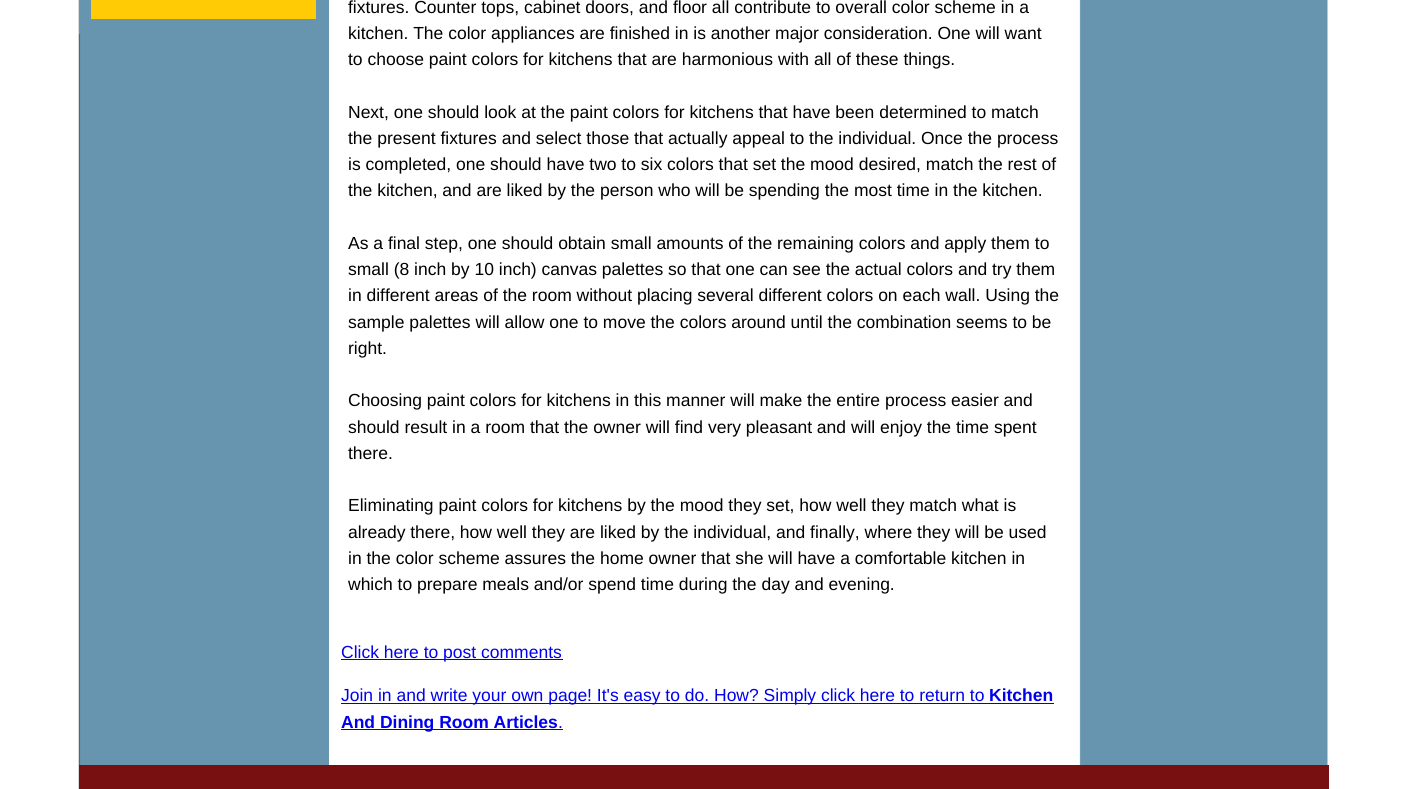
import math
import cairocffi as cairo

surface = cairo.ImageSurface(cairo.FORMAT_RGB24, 1407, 789)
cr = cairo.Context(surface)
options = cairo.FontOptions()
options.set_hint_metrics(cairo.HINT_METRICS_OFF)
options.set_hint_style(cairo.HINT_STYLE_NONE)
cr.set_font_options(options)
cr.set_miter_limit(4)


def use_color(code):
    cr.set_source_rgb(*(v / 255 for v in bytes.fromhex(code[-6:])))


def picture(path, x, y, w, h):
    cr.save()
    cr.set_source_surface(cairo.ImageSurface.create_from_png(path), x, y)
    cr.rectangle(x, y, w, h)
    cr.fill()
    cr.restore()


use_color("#ffffff")
cr.paint()
picture("img1.png", 78, 0, 1250, 789)
use_color("#6795af")
cr.rectangle(79, 0, 2, 34)
cr.fill()
use_color("#ffcb05")
cr.rectangle(91, 0, 225, 19)
cr.fill()
use_color("#ffffff")
cr.rectangle(329, 0, 14, 765)
cr.fill()
cr.select_font_face("Liberation Sans")
cr.set_font_size(17.5)
use_color("#000000")
cr.move_to(348, 13)
cr.show_text("fixtures. Counter tops, cabinet doors, and floor all contribute to overall color scheme in a")
cr.move_to(348, 39)
cr.show_text("kitchen. The color appliances are finished in is another major consideration. One will want")
cr.move_to(348, 65)
cr.show_text("to choose paint colors for kitchens that are harmonious with all of these things.")
cr.move_to(348, 118)
cr.show_text("Next, one should look at the paint colors for kitchens that have been determined to match")
cr.move_to(348, 144)
cr.show_text("the present fixtures and select those that actually appeal to the individual. Once the process")
cr.move_to(348, 170)
cr.show_text("is completed, one should have two to six colors that set the mood desired, match the rest of")
cr.move_to(348, 196)
cr.show_text("the kitchen, and are liked by the person who will be spending the most time in the kitchen.")
cr.move_to(348, 249)
cr.show_text("As a final step, one should obtain small amounts of the remaining colors and apply them to")
cr.move_to(348, 275)
cr.show_text("small (8 inch by 10 inch) canvas palettes so that one can see the actual colors and try them")
cr.move_to(348, 301)
cr.show_text("in different areas of the room without placing several different colors on each wall. Using the")
cr.move_to(348, 328)
cr.show_text("sample palettes will allow one to move the colors around until the combination seems to be")
cr.move_to(348, 354)
cr.show_text("right.")
cr.move_to(348, 406)
cr.show_text("Choosing paint colors for kitchens in this manner will make the entire process easier and")
cr.move_to(348, 433)
cr.show_text("should result in a room that the owner will find very pleasant and will enjoy the time spent")
cr.move_to(348, 459)
cr.show_text("there.")
cr.move_to(348, 511)
cr.show_text("Eliminating paint colors for kitchens by the mood they set, how well they match what is")
cr.move_to(348, 538)
cr.show_text("already there, how well they are liked by the individual, and finally, where they will be used")
cr.move_to(348, 564)
cr.show_text("in the color scheme assures the home owner that she will have a comfortable kitchen in")
cr.move_to(348, 590)
cr.show_text("which to prepare meals and/or spend time during the day and evening.")
use_color("#0000ee")
cr.rectangle(341, 659, 222, 1)
cr.fill()
cr.move_to(341, 658)
cr.show_text("Click here to post comments")
cr.rectangle(341, 703, 713, 1)
cr.fill()
cr.move_to(341, 701)
cr.show_text("Join in and write your own page! It's easy to do. How? Simply click here to return to")
cr.select_font_face("Liberation Sans", cairo.FONT_SLANT_NORMAL, cairo.FONT_WEIGHT_BOLD)
cr.move_to(989, 701)
cr.show_text("Kitchen")
cr.rectangle(341, 729, 222, 1)
cr.fill()
cr.move_to(341, 728)
cr.show_text("And Dining Room Articles")
cr.select_font_face("Liberation Sans")
cr.move_to(558, 728)
cr.show_text(".")
use_color("#781011")
cr.rectangle(79, 765, 1250, 24)
cr.fill()
surface.write_to_png("result.png")
